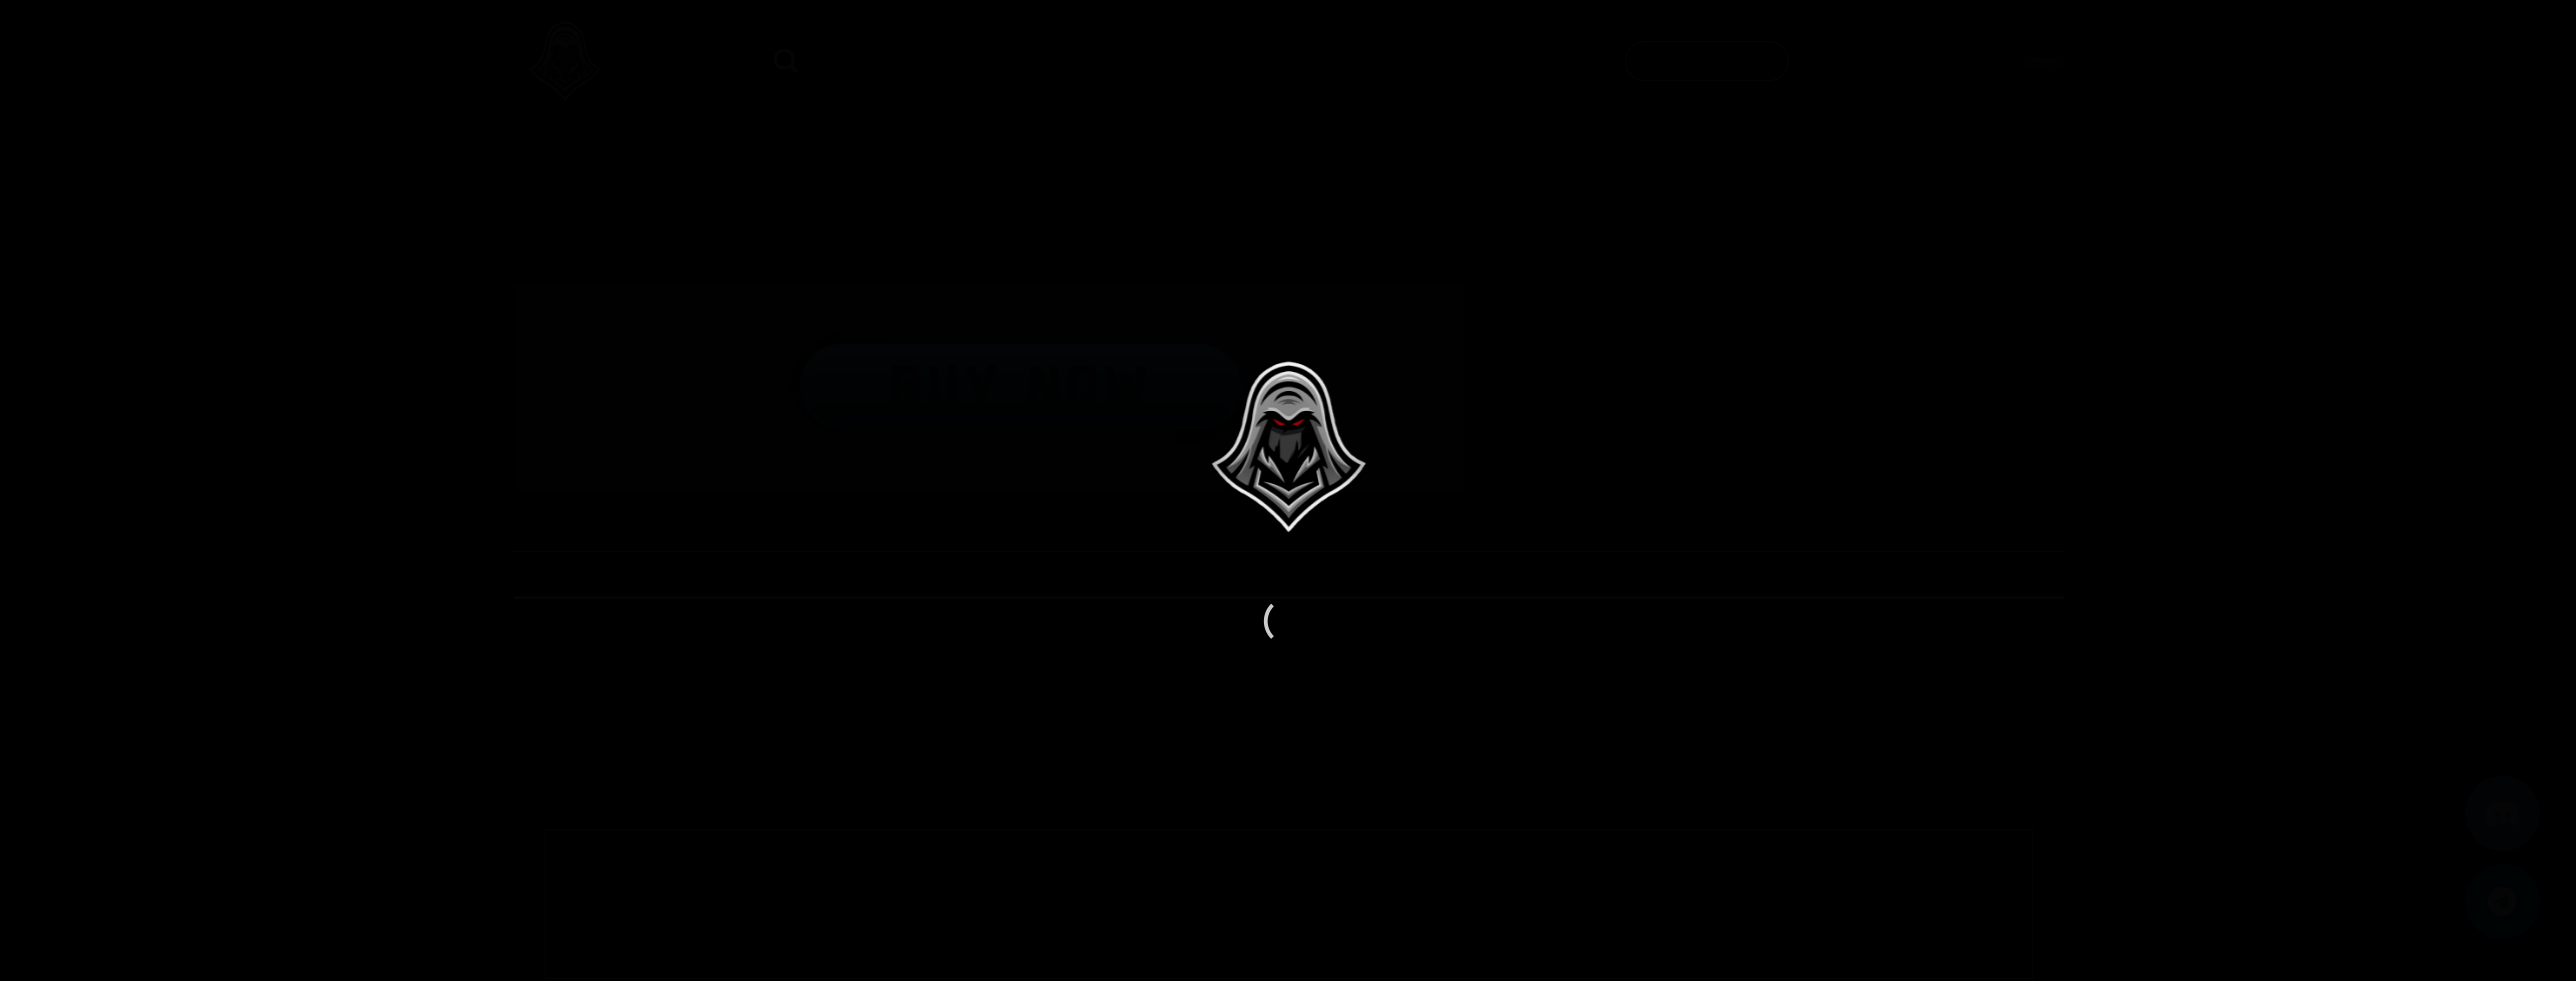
import math
import cairocffi as cairo

surface = cairo.ImageSurface(cairo.FORMAT_RGB24, 2576, 981)
cr = cairo.Context(surface)
options = cairo.FontOptions()
options.set_hint_metrics(cairo.HINT_METRICS_OFF)
options.set_hint_style(cairo.HINT_STYLE_NONE)
cr.set_font_options(options)
cr.set_miter_limit(4)


def use_color(code):
    cr.set_source_rgb(*(v / 255 for v in bytes.fromhex(code[-6:])))


def round_rect(x, y, w, h, r):
    cr.new_sub_path()
    for i, (u, v) in enumerate([(x + w - r, y + h - r), (x + r, y + h - r), (x + r, y + r), (x + w - r, y + r)]):
        cr.arc(u, v, r, i * math.pi / 2, (i + 1) * math.pi / 2)
    cr.close_path()


def picture(path, x, y, w, h):
    cr.save()
    cr.set_source_surface(cairo.ImageSurface.create_from_png(path), x, y)
    cr.rectangle(x, y, w, h)
    cr.fill()
    cr.restore()


use_color("#000000")
cr.paint()
picture("img1.png", 529, 21, 72, 80)
picture("img2.png", 773, 48, 25, 25)
round_rect(1625.5, 41.5, 163, 39, 19.5)
use_color("#050505")
cr.set_line_width(1)
cr.stroke()
picture("img3.png", 2023, 57, 41, 10)
picture("img4.png", 513, 283, 951, 207)
cr.rectangle(514, 551, 1550, 1)
cr.fill()
cr.rectangle(514, 596, 1550, 3)
cr.fill()
cr.rectangle(545.5, 829.5, 1487, 149)
use_color("#040404")
cr.stroke()
picture("img5.png", 1211, 361, 156, 172)
cr.new_path()
cr.move_to(1272.5, 637.5)
cr.curve_to(1263.5, 628.5, 1263.5, 614, 1272.5, 605)
use_color("#cbcbcb")
cr.set_line_width(3.8)
cr.stroke()
use_color("#020304")
cr.arc(2502.5, 813.5, 37.5, 0, 2 * math.pi)
cr.fill()
picture("img6.png", 2485, 800, 35, 27)
use_color("#000304")
cr.arc(2502.5, 901.5, 37.5, 0, 2 * math.pi)
cr.fill()
picture("img7.png", 2487, 886, 30, 30)
surface.write_to_png("result.png")
